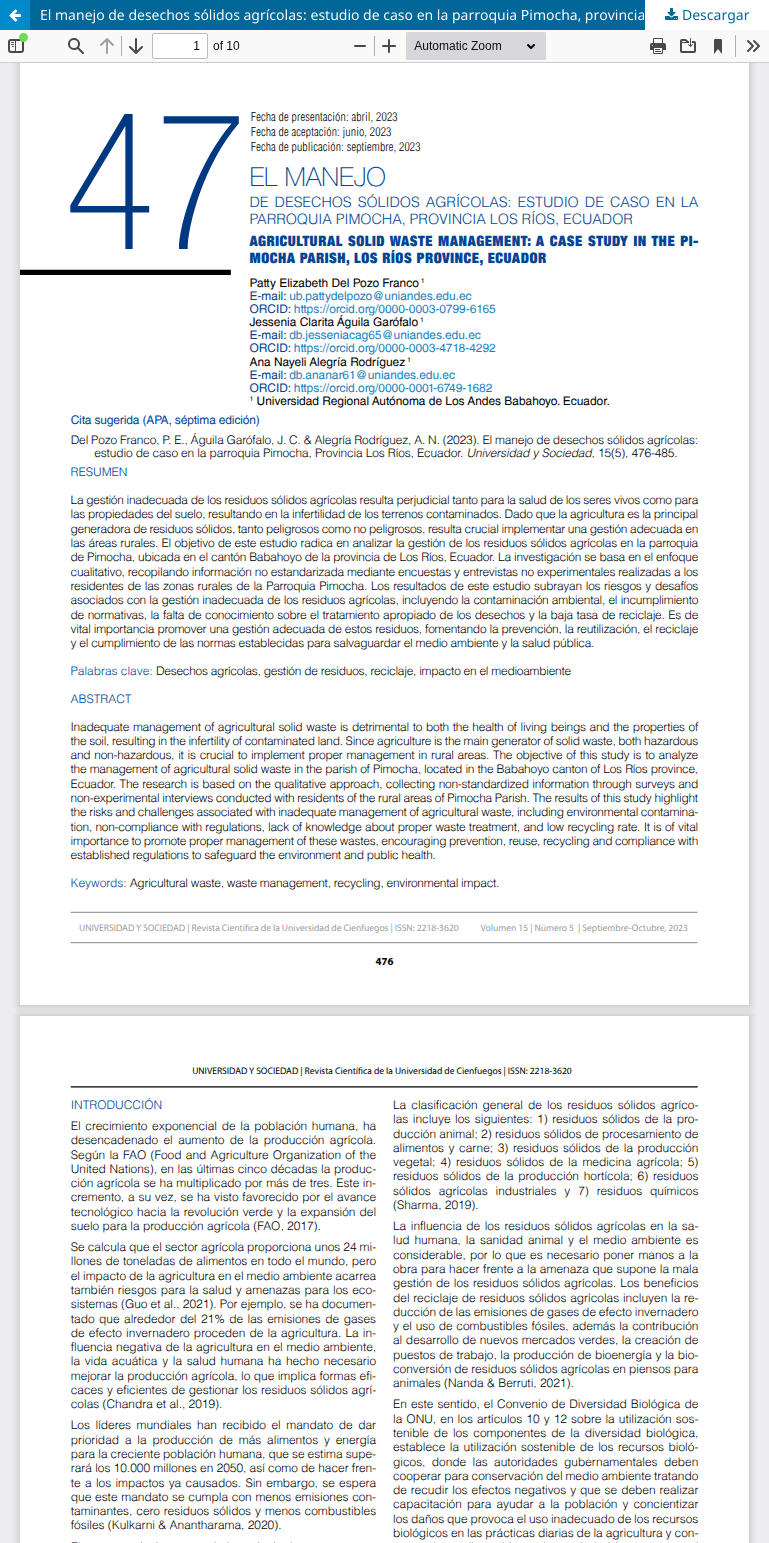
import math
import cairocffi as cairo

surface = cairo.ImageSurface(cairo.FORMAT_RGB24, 769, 1543)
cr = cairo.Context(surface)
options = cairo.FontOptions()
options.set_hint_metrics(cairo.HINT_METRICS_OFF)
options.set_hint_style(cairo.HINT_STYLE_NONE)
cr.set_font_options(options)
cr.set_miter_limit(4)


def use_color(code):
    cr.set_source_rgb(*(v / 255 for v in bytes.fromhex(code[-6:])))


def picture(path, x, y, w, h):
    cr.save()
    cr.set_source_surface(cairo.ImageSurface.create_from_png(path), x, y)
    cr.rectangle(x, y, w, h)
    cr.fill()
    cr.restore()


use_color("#ffffff")
cr.paint()
use_color("#006798")
cr.rectangle(30, 0, 615, 30)
cr.fill()
use_color("#008acb")
cr.rectangle(0, 0, 30, 30)
cr.fill()
picture("img1.png", 9, 9, 12, 13)
cr.select_font_face("Noto Sans")
cr.set_font_size(14)
use_color("#ffffff")
cr.move_to(40, 20)
cr.show_text("El manejo de desechos sólidos agrícolas: estudio de caso en la parroquia Pimocha, provincia")
picture("img2.png", 665, 8, 13, 12)
use_color("#006798")
cr.move_to(682, 20)
cr.show_text("Descargar")
picture("img3.png", 0, 30, 769, 1513)
surface.write_to_png("result.png")
